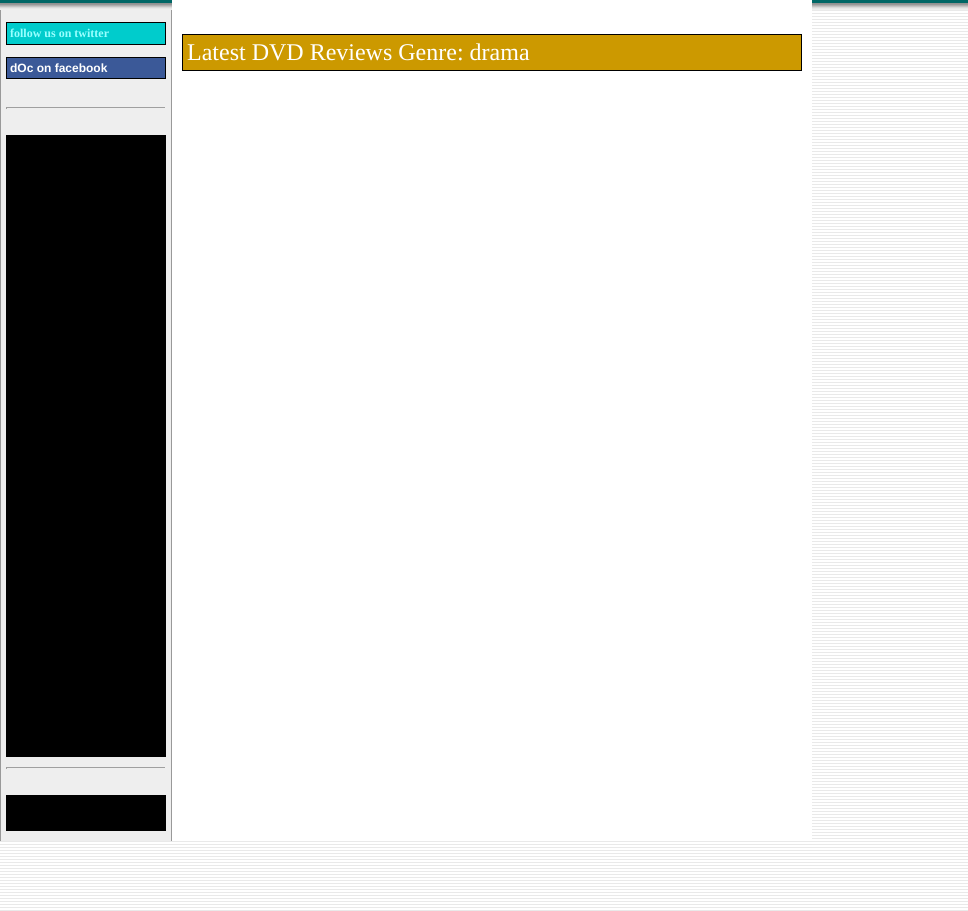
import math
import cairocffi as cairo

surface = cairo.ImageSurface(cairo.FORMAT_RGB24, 968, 911)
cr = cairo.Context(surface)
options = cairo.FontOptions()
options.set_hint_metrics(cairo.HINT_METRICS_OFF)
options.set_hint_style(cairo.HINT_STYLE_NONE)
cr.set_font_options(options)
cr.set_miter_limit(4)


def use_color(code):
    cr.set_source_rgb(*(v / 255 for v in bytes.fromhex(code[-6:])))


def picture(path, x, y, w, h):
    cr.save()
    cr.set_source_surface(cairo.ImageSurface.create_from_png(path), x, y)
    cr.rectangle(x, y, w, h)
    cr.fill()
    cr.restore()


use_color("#ffffff")
cr.paint()
picture("img1.png", 0, 10, 968, 901)
picture("img2.png", 0, 0, 172, 10)
picture("img3.png", 812, 0, 156, 10)
use_color("#eeeeee")
cr.rectangle(1, 10, 170, 831)
cr.fill()
use_color("#999999")
cr.rectangle(171, 10, 1, 831)
cr.fill()
cr.rectangle(0, 10, 1, 831)
cr.fill()
use_color("#00cccc")
cr.rectangle(6.5, 22.5, 159, 22)
cr.fill_preserve()
use_color("#000000")
cr.set_line_width(1)
cr.stroke()
cr.select_font_face("Liberation Serif", cairo.FONT_SLANT_NORMAL, cairo.FONT_WEIGHT_BOLD)
cr.set_font_size(12)
use_color("#99ffff")
cr.move_to(10, 37)
cr.show_text("follow us on twitter")
use_color("#3b5998")
cr.rectangle(6.5, 57.5, 159, 21)
cr.fill_preserve()
use_color("#000000")
cr.stroke()
cr.select_font_face("Liberation Sans", cairo.FONT_SLANT_NORMAL, cairo.FONT_WEIGHT_BOLD)
use_color("#ffffff")
cr.move_to(10, 72)
cr.show_text("dOc on facebook")
use_color("#9f9f9f")
cr.rectangle(6, 107, 160, 1)
cr.fill()
use_color("#eeeeee")
cr.rectangle(165, 107, 1, 2)
cr.fill()
use_color("#9f9f9f")
cr.rectangle(6, 107, 1, 2)
cr.fill()
use_color("#000000")
cr.rectangle(6, 135, 160, 622)
cr.fill()
use_color("#9f9f9f")
cr.rectangle(6, 767, 160, 1)
cr.fill()
use_color("#eeeeee")
cr.rectangle(165, 767, 1, 2)
cr.fill()
use_color("#9f9f9f")
cr.rectangle(6, 767, 1, 2)
cr.fill()
use_color("#000000")
cr.rectangle(6, 795, 160, 36)
cr.fill()
use_color("#ffffff")
cr.rectangle(172, 10, 640, 829)
cr.fill()
use_color("#cc9900")
cr.rectangle(182.5, 34.5, 619, 36)
cr.fill_preserve()
use_color("#000000")
cr.stroke()
cr.select_font_face("Liberation Serif")
cr.set_font_size(24)
use_color("#ffffff")
cr.move_to(187, 60)
cr.show_text("Latest DVD Reviews Genre: drama")
surface.write_to_png("result.png")
